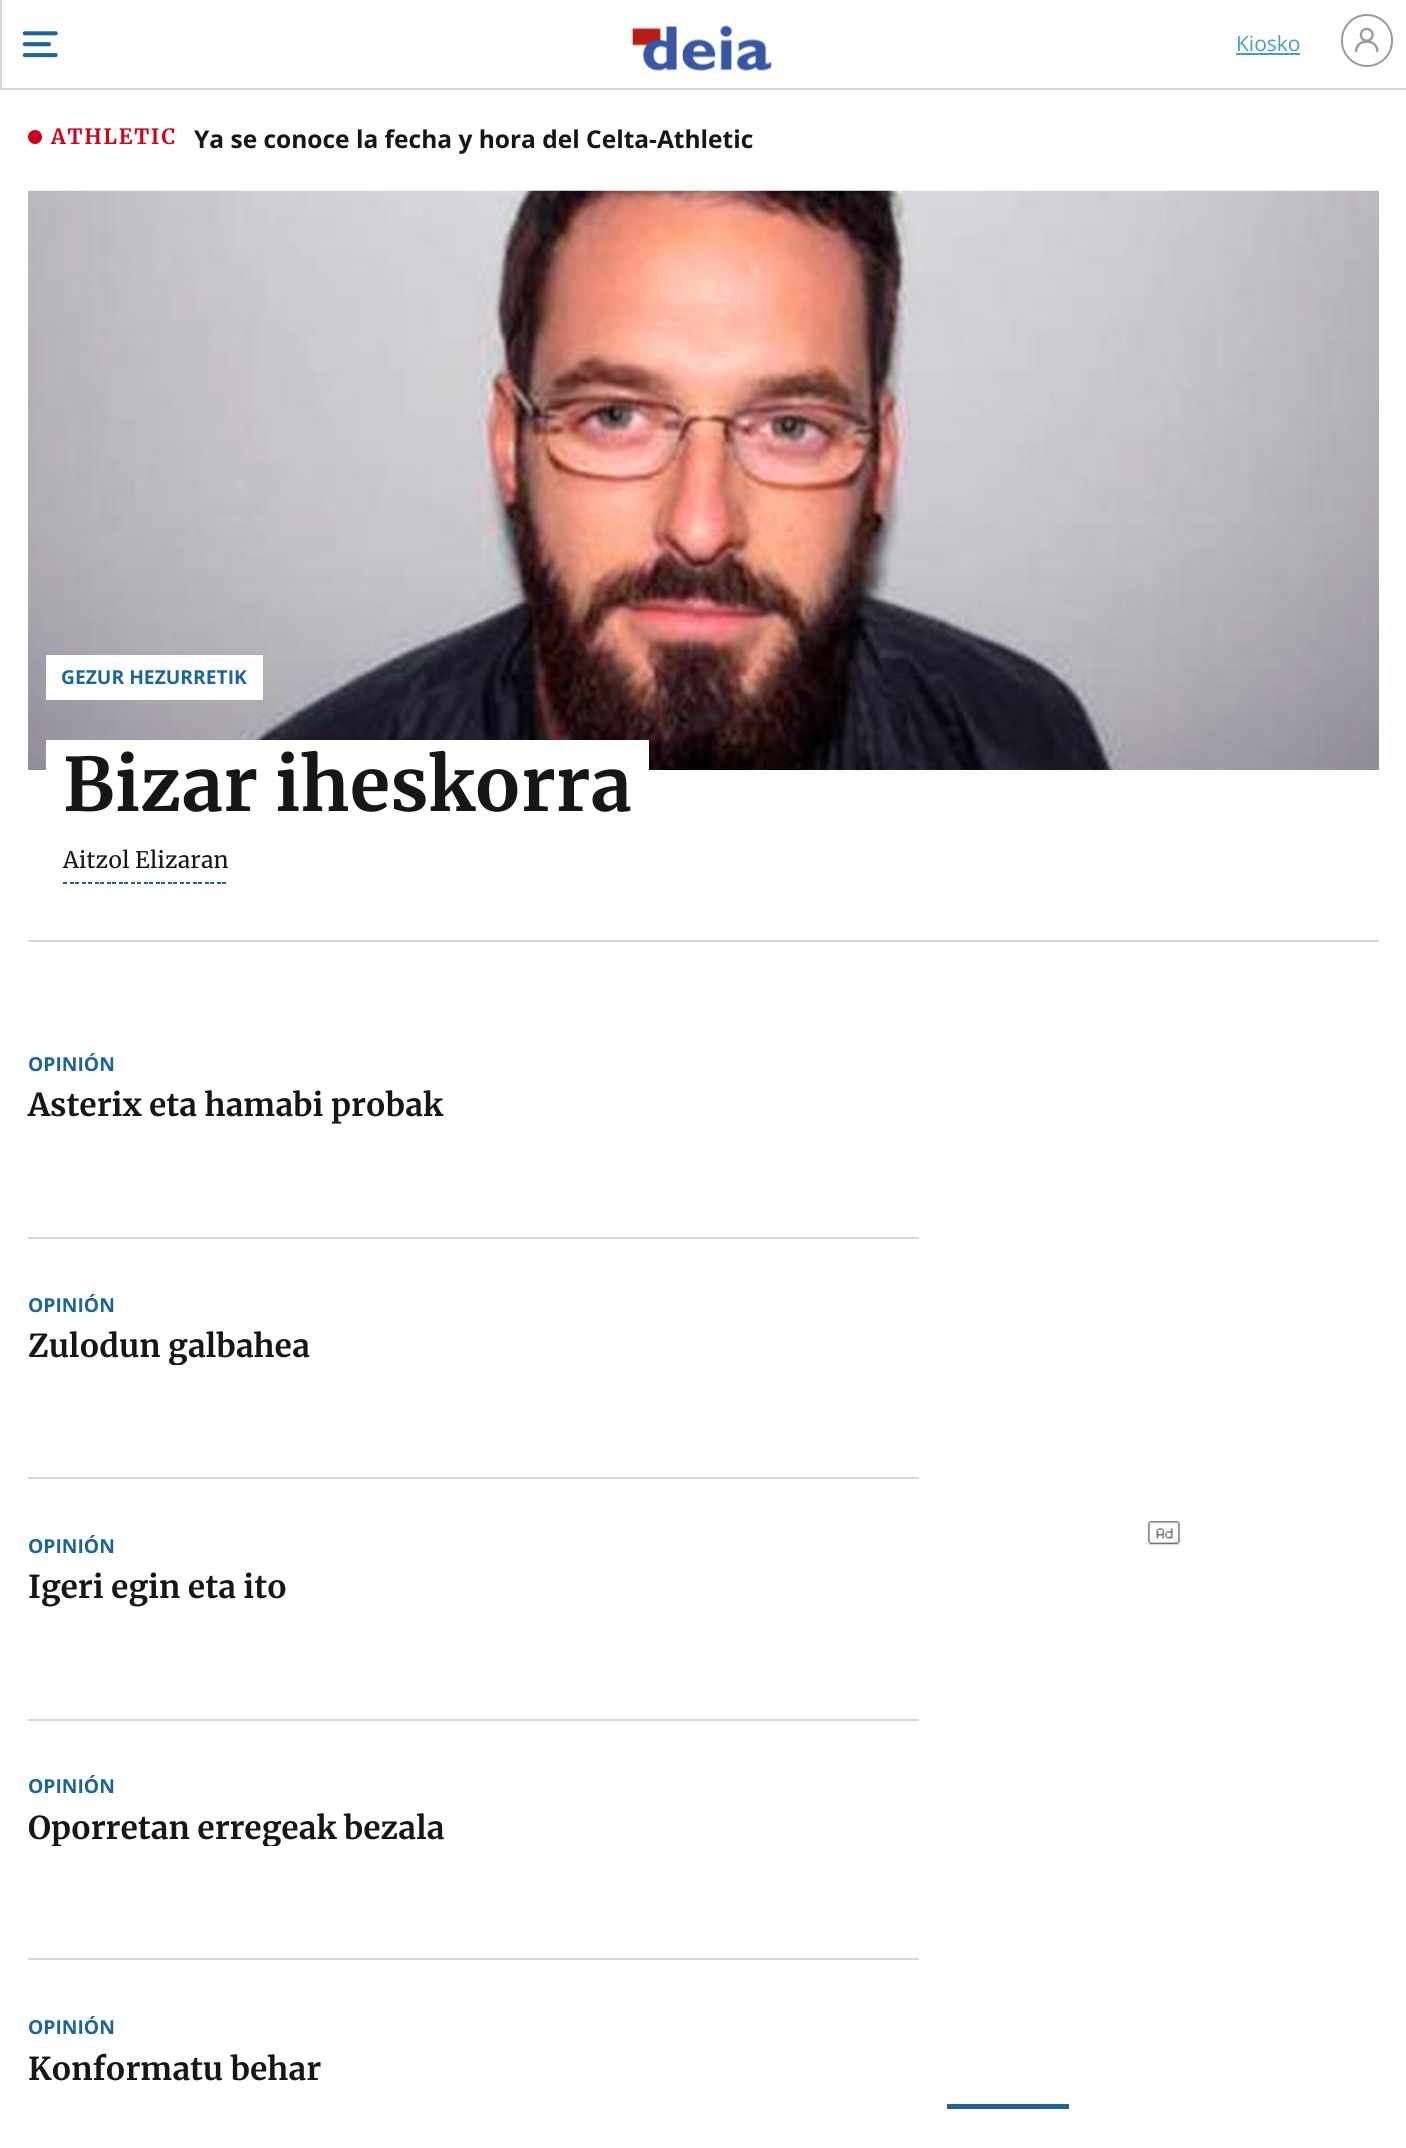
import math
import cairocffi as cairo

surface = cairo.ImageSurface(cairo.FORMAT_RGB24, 1406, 2148)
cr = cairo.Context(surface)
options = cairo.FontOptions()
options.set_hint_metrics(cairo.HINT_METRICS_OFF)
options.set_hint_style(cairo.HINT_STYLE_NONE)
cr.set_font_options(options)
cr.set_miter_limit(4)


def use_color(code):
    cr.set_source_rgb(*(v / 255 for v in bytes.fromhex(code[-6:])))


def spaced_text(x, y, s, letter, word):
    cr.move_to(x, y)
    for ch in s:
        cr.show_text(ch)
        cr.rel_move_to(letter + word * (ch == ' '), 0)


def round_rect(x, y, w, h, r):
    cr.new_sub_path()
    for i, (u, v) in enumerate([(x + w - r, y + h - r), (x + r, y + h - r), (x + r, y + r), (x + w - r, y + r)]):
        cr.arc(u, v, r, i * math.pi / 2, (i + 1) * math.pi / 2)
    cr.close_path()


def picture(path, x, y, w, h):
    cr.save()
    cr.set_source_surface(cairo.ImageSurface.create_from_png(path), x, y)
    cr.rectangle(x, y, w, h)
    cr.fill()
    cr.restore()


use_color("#ffffff")
cr.paint()
use_color("#d8d8d8")
cr.rectangle(0, 0, 2, 88)
cr.fill()
picture("img1.png", 22, 31, 36, 27)
picture("img2.png", 632, 25, 140, 46)
cr.select_font_face("Open Sans")
cr.set_font_size(21)
use_color("#41a1ba")
cr.move_to(1236, 51)
cr.show_text("Kiosko")
cr.rectangle(1236, 53, 64, 2)
cr.fill()
round_rect(1342, 15, 50, 51, 25)
use_color("#9a9a9a")
cr.stroke()
picture("img3.png", 1355, 27, 24, 26)
use_color("#d8d8d8")
cr.rectangle(0, 88, 1406, 2)
cr.fill()
use_color("#d0021b")
cr.arc(35, 137, 7, 0, 2 * math.pi)
cr.fill()
cr.select_font_face("Merriweather", cairo.FONT_SLANT_NORMAL, cairo.FONT_WEIGHT_BOLD)
spaced_text(51, 144, "ATHLETIC", 1.75, 0)
cr.select_font_face("Open Sans", cairo.FONT_SLANT_NORMAL, cairo.FONT_WEIGHT_BOLD)
cr.set_font_size(24.5)
use_color("#161616")
cr.move_to(194, 148)
cr.show_text("Ya se conoce la fecha y hora del Celta-Athletic")
picture("img4.png", 28, 190, 1351, 580)
use_color("#ffffff")
cr.rectangle(46, 655, 217, 45)
cr.fill()
cr.set_font_size(19.25)
use_color("#1b6598")
cr.move_to(61, 684)
cr.show_text("GEZUR HEZURRETIK")
use_color("#ffffff")
cr.rectangle(46, 740, 603, 30)
cr.fill()
cr.select_font_face("Merriweather", cairo.FONT_SLANT_NORMAL, cairo.FONT_WEIGHT_BOLD)
cr.set_font_size(73.5)
use_color("#161616")
cr.move_to(63, 811)
cr.show_text("Bizar iheskorra")
picture("img5.png", 63, 882, 163, 2)
cr.select_font_face("Merriweather")
cr.set_font_size(22.75)
cr.move_to(63, 868)
cr.show_text("Aitzol Elizaran")
use_color("#d8d8d8")
cr.rectangle(28, 940, 1351, 2)
cr.fill()
cr.rectangle(28, 1237, 891, 2)
cr.fill()
cr.select_font_face("Open Sans", cairo.FONT_SLANT_NORMAL, cairo.FONT_WEIGHT_BOLD)
cr.set_font_size(19.25)
use_color("#1b6598")
cr.move_to(28, 1071)
cr.show_text("OPINIÓN")
cr.select_font_face("Merriweather", cairo.FONT_SLANT_NORMAL, cairo.FONT_WEIGHT_BOLD)
cr.set_font_size(31.5)
use_color("#161616")
cr.move_to(28, 1116)
cr.show_text("Asterix eta hamabi probak")
use_color("#d8d8d8")
cr.rectangle(28, 1477, 891, 2)
cr.fill()
cr.select_font_face("Open Sans", cairo.FONT_SLANT_NORMAL, cairo.FONT_WEIGHT_BOLD)
cr.set_font_size(19.25)
use_color("#1b6598")
cr.move_to(28, 1312)
cr.show_text("OPINIÓN")
cr.save()
cr.rectangle(28, 1328, 891, 37)
cr.clip()
cr.select_font_face("Merriweather", cairo.FONT_SLANT_NORMAL, cairo.FONT_WEIGHT_BOLD)
cr.set_font_size(31.5)
use_color("#161616")
cr.move_to(28, 1357)
cr.show_text("Zulodun galbahea")
cr.restore()
use_color("#d8d8d8")
cr.rectangle(28, 1719, 891, 2)
cr.fill()
use_color("#1b6598")
cr.move_to(28, 1553)
cr.show_text("OPINIÓN")
cr.select_font_face("Merriweather", cairo.FONT_SLANT_NORMAL, cairo.FONT_WEIGHT_BOLD)
cr.set_font_size(31.5)
use_color("#161616")
cr.move_to(28, 1598)
cr.show_text("Igeri egin eta ito")
use_color("#d8d8d8")
cr.rectangle(28, 1958, 891, 2)
cr.fill()
cr.select_font_face("Open Sans", cairo.FONT_SLANT_NORMAL, cairo.FONT_WEIGHT_BOLD)
cr.set_font_size(19.25)
use_color("#1b6598")
cr.move_to(28, 1793)
cr.show_text("OPINIÓN")
cr.save()
cr.rectangle(28, 1810, 891, 36)
cr.clip()
cr.select_font_face("Merriweather", cairo.FONT_SLANT_NORMAL, cairo.FONT_WEIGHT_BOLD)
cr.set_font_size(31.5)
use_color("#161616")
cr.move_to(28, 1839)
cr.show_text("Oporretan erregeak bezala")
cr.restore()
cr.move_to(28, 2034)
cr.show_text("OPINIÓN")
cr.select_font_face("Merriweather", cairo.FONT_SLANT_NORMAL, cairo.FONT_WEIGHT_BOLD)
cr.set_font_size(31.5)
use_color("#161616")
cr.move_to(28, 2080)
cr.show_text("Konformatu behar")
picture("img6.png", 1147, 1520, 33, 25)
use_color("#1b6598")
cr.rectangle(947, 2104, 122, 5)
cr.fill()
surface.write_to_png("result.png")
